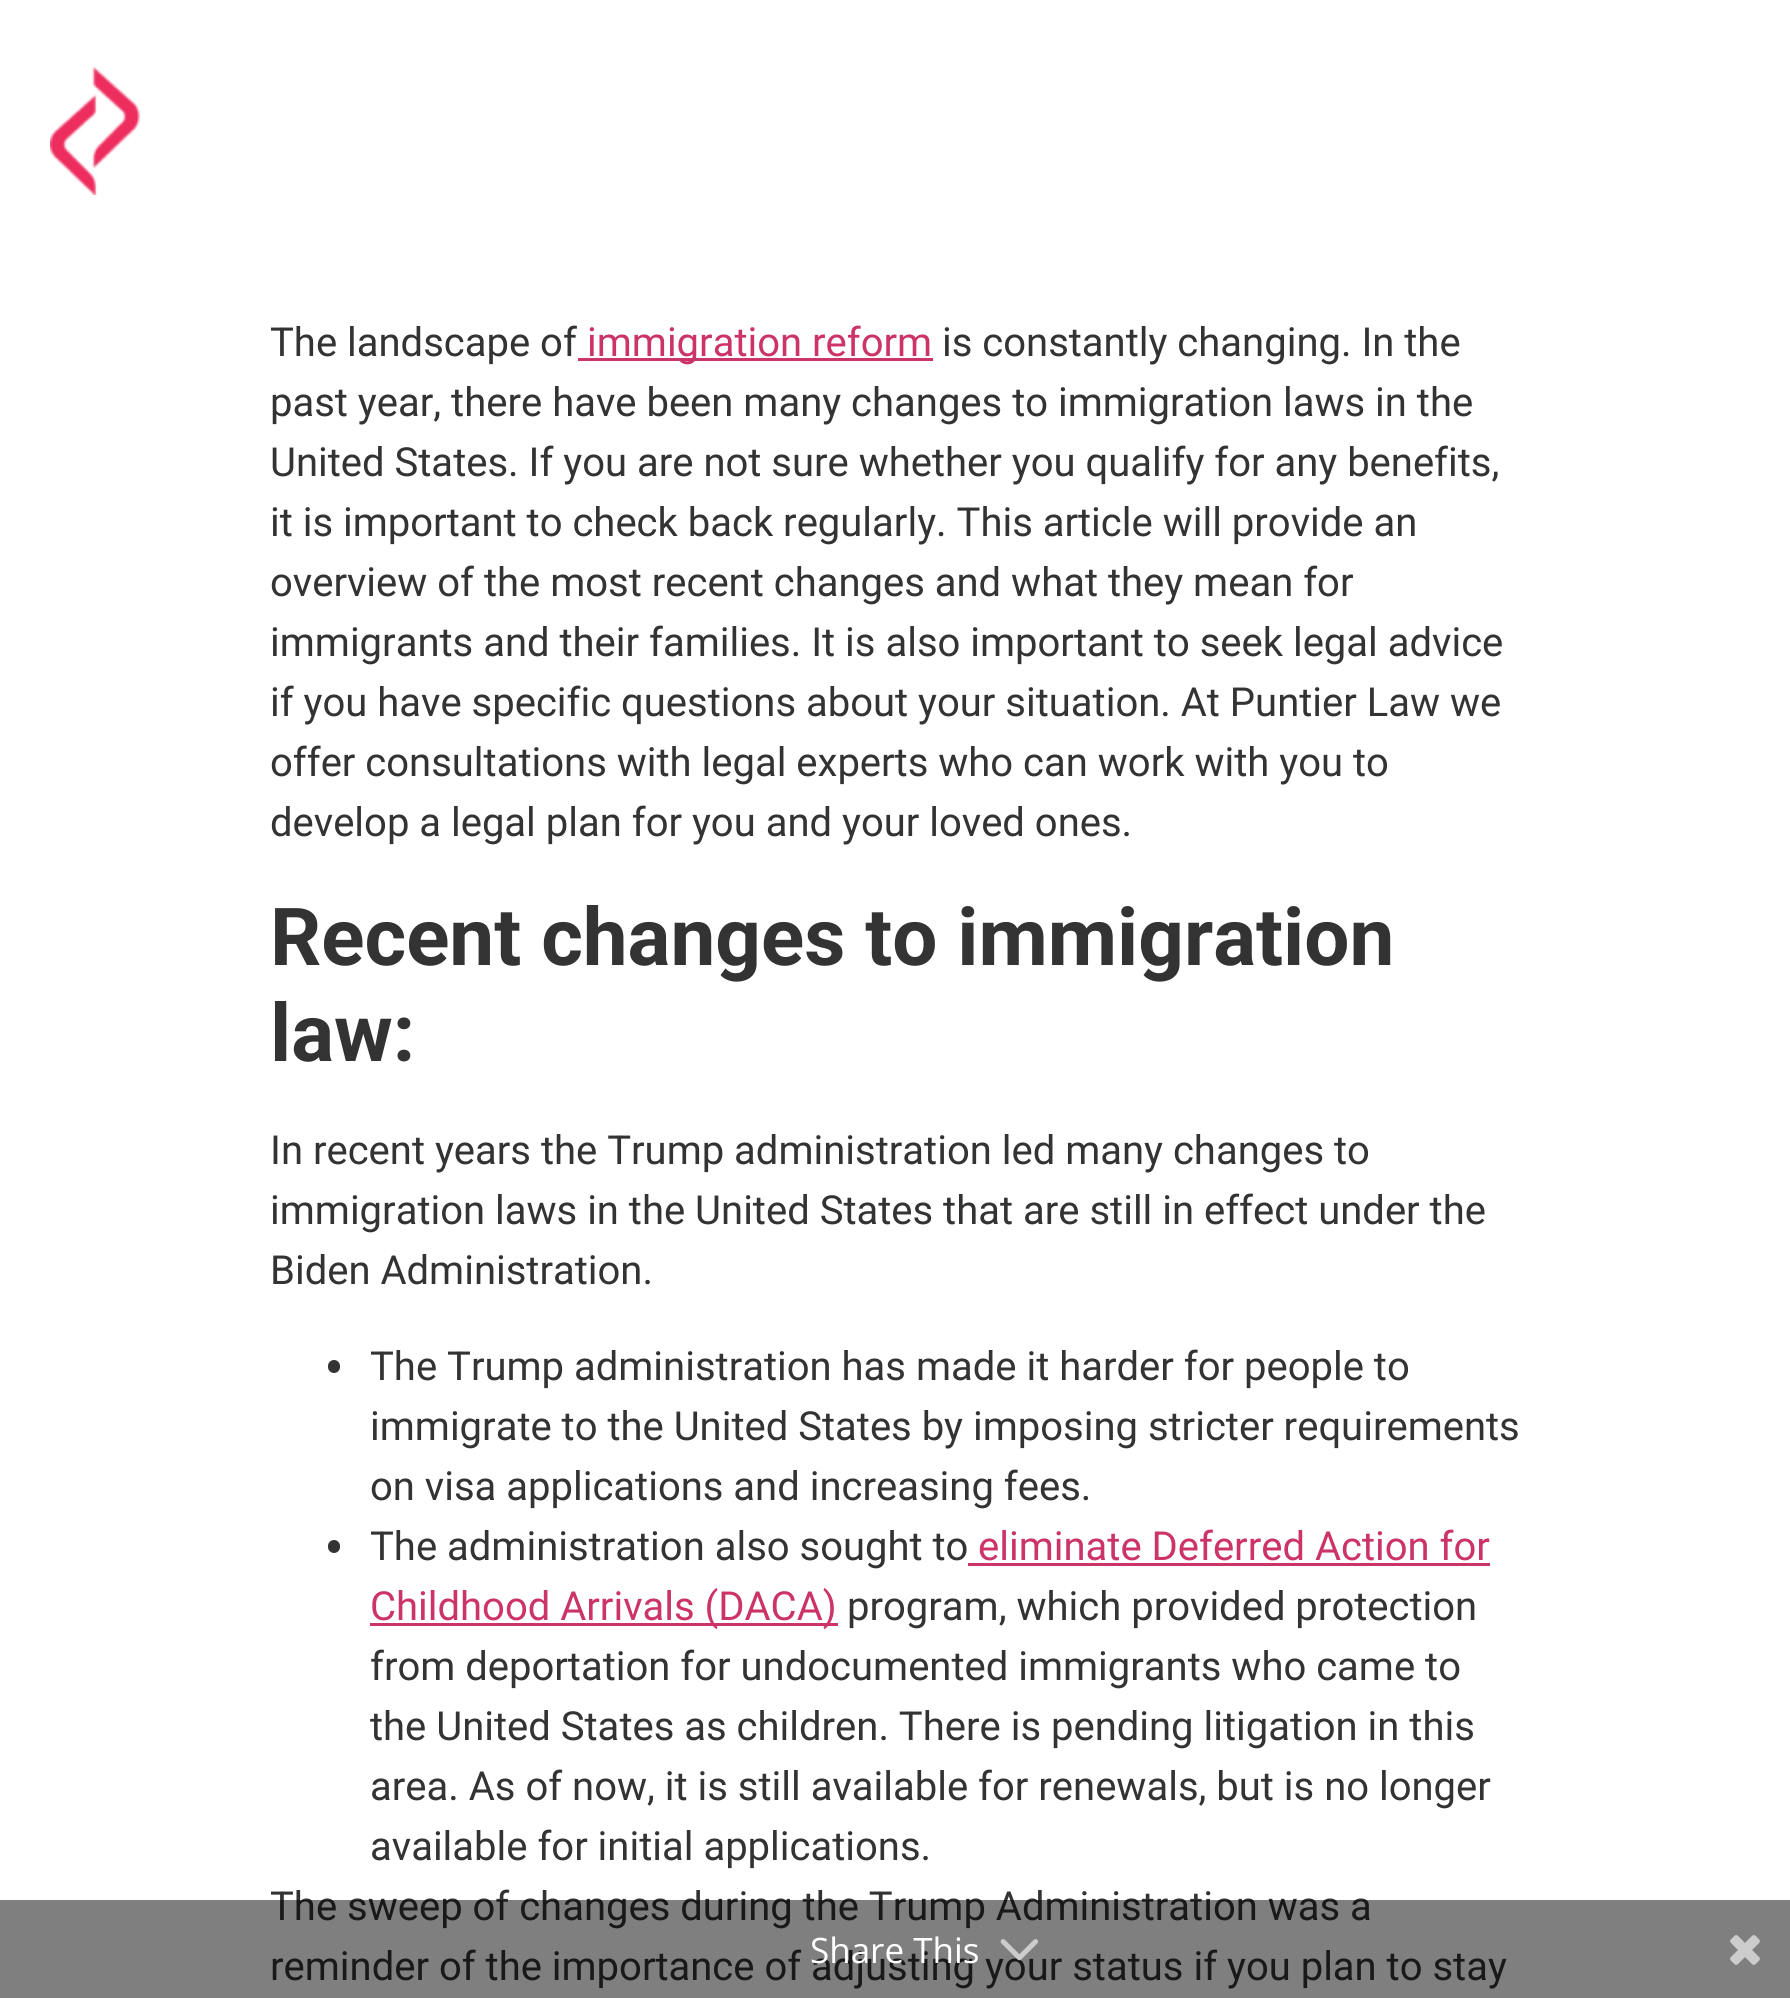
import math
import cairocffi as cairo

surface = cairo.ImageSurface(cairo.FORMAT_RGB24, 1790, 1998)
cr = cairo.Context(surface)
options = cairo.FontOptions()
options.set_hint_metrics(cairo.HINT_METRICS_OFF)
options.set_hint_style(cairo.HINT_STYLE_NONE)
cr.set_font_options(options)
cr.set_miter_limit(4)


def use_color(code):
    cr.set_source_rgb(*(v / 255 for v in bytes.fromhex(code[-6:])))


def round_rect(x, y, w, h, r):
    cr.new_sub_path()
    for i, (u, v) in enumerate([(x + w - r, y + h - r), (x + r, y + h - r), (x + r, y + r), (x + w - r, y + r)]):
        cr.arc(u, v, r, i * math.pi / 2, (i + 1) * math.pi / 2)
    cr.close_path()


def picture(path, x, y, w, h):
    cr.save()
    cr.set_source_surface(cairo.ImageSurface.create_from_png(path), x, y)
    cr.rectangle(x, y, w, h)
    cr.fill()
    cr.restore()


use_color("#ffffff")
cr.paint()
picture("img1.png", 50, 67, 91, 128)
cr.select_font_face("Roboto")
cr.set_font_size(40)
use_color("#333333")
cr.move_to(270, 356)
cr.show_text("The landscape of")
use_color("#cc3366")
cr.rectangle(578, 358, 355, 3)
cr.fill()
cr.move_to(587, 356)
cr.show_text("immigration reform")
use_color("#333333")
cr.move_to(942, 356)
cr.show_text("is constantly changing. In the")
cr.move_to(270, 416)
cr.show_text("past year, there have been many changes to immigration laws in the")
cr.move_to(270, 476)
cr.show_text("United States. If you are not sure whether you qualify for any benefits,")
cr.move_to(270, 536)
cr.show_text("it is important to check back regularly. This article will provide an")
cr.move_to(270, 596)
cr.show_text("overview of the most recent changes and what they mean for")
cr.move_to(270, 656)
cr.show_text("immigrants and their families. It is also important to seek legal advice")
cr.move_to(270, 716)
cr.show_text("if you have specific questions about your situation. At Puntier Law we")
cr.move_to(270, 776)
cr.show_text("offer consultations with legal experts who can work with you to")
cr.move_to(270, 836)
cr.show_text("develop a legal plan for you and your loved ones.")
cr.select_font_face("Roboto", cairo.FONT_SLANT_NORMAL, cairo.FONT_WEIGHT_BOLD)
cr.set_font_size(80)
cr.move_to(270, 965)
cr.show_text("Recent changes to immigration")
cr.move_to(270, 1061)
cr.show_text("law:")
cr.select_font_face("Roboto")
cr.set_font_size(40)
cr.move_to(270, 1164)
cr.show_text("In recent years the Trump administration led many changes to")
cr.move_to(270, 1224)
cr.show_text("immigration laws in the United States that are still in effect under the")
cr.move_to(270, 1284)
cr.show_text("Biden Administration.")
round_rect(328, 1360, 12, 13, 6)
cr.fill()
cr.move_to(370, 1380)
cr.show_text("The Trump administration has made it harder for people to")
cr.move_to(370, 1440)
cr.show_text("immigrate to the United States by imposing stricter requirements")
cr.move_to(370, 1500)
cr.show_text("on visa applications and increasing fees.")
round_rect(328, 1540, 12, 13, 6)
cr.fill()
cr.move_to(370, 1560)
cr.show_text("The administration also sought to")
use_color("#cc3366")
cr.move_to(978, 1560)
cr.show_text("eliminate Deferred Action for")
cr.rectangle(968, 1563, 522, 3)
cr.fill()
cr.rectangle(370, 1623, 468, 3)
cr.fill()
cr.move_to(370, 1620)
cr.show_text("Childhood Arrivals (DACA)")
use_color("#333333")
cr.move_to(847, 1620)
cr.show_text("program, which provided protection")
cr.move_to(370, 1680)
cr.show_text("from deportation for undocumented immigrants who came to")
cr.move_to(370, 1740)
cr.show_text("the United States as children. There is pending litigation in this")
cr.move_to(370, 1800)
cr.show_text("area. As of now, it is still available for renewals, but is no longer")
cr.move_to(370, 1860)
cr.show_text("available for initial applications.")
cr.move_to(270, 1920)
cr.show_text("The sweep of changes during the Trump Administration was a")
cr.move_to(270, 1980)
cr.show_text("reminder of the importance of adjusting your status if you plan to stay")
cr.set_source_rgba(0, 0, 0, 0.5)
cr.rectangle(0, 1900, 1790, 98)
cr.fill()
cr.select_font_face("Open Sans")
cr.set_font_size(35)
use_color("#ffffff")
cr.move_to(810, 1963)
cr.show_text("Share This")
picture("img2.png", 1000, 1939, 39, 22)
picture("img3.png", 1730, 1935, 30, 30)
surface.write_to_png("result.png")
